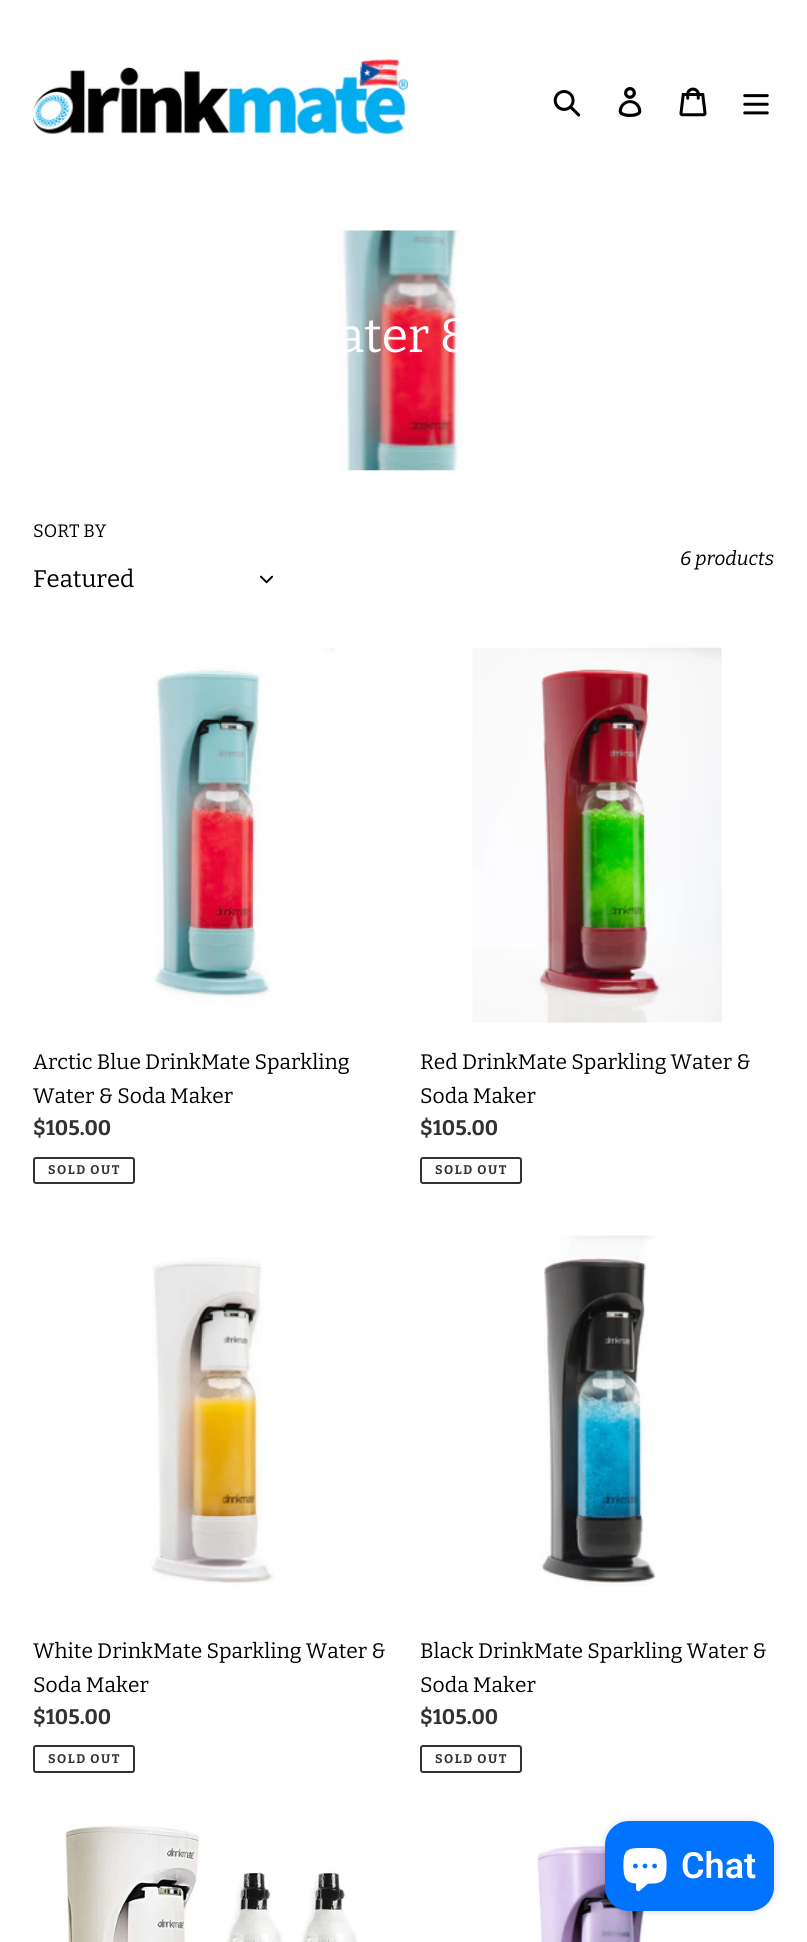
import math
import cairocffi as cairo

surface = cairo.ImageSurface(cairo.FORMAT_RGB24, 807, 1942)
cr = cairo.Context(surface)
options = cairo.FontOptions()
options.set_hint_metrics(cairo.HINT_METRICS_OFF)
options.set_hint_style(cairo.HINT_STYLE_NONE)
cr.set_font_options(options)
cr.set_miter_limit(4)


def use_color(code):
    cr.set_source_rgb(*(v / 255 for v in bytes.fromhex(code[-6:])))


def spaced_text(x, y, s, letter, word):
    cr.move_to(x, y)
    for ch in s:
        cr.show_text(ch)
        cr.rel_move_to(letter + word * (ch == ' '), 0)


def round_rect(x, y, w, h, r):
    cr.new_sub_path()
    for i, (u, v) in enumerate([(x + w - r, y + h - r), (x + r, y + h - r), (x + r, y + r), (x + w - r, y + r)]):
        cr.arc(u, v, r, i * math.pi / 2, (i + 1) * math.pi / 2)
    cr.close_path()


def shadow(x, y, w, h, r, blur, alpha):
    cr.push_group_with_content(cairo.CONTENT_ALPHA)
    cr.set_operator(cairo.OPERATOR_SOURCE)
    for i in range(15, -16, -2):
        e = blur * i / 6
        if min(w, h) + 2 * e > 0:
            cr.set_source_rgba(0, 0, 0, alpha * math.erfc((i - 1) / 8.5) / 2)
            round_rect(x - e, y - e, w + 2 * e, h + 2 * e, max(0, min(r + e + blur * .6, min(w, h) / 2 + e)))
            cr.fill()
    cr.mask(cr.pop_group())


def picture(path, x, y, w, h):
    cr.save()
    cr.set_source_surface(cairo.ImageSurface.create_from_png(path), x, y)
    cr.rectangle(x, y, w, h)
    cr.fill()
    cr.restore()


use_color("#ffffff")
cr.paint()
picture("img1.png", 33, 58, 375, 77)
picture("img2.png", 553, 90, 28, 27)
picture("img3.png", 618, 87, 24, 30)
picture("img4.png", 679, 87, 28, 30)
picture("img5.png", 743, 94, 26, 21)
picture("img6.png", 338, 230, 126, 241)
cr.select_font_face("Bitter")
cr.set_font_size(48)
use_color("#ffffff")
cr.move_to(338, 352)
cr.show_text("ater &")
cr.set_font_size(18)
use_color("#000000")
cr.move_to(33, 537)
cr.show_text("SORT BY")
cr.set_font_size(24)
cr.move_to(33, 587)
cr.show_text("Featured")
picture("img7.png", 260, 575, 13, 9)
cr.select_font_face("Bitter", cairo.FONT_SLANT_ITALIC)
cr.set_font_size(19.5)
cr.move_to(680, 565)
cr.show_text("6 products")
picture("img8.png", 154, 648, 181, 354)
cr.select_font_face("Bitter")
cr.set_font_size(21)
cr.move_to(33, 1069)
cr.show_text("Arctic Blue DrinkMate Sparkling")
cr.move_to(33, 1103)
cr.show_text("Water & Soda Maker")
cr.select_font_face("Bitter", cairo.FONT_SLANT_NORMAL, cairo.FONT_WEIGHT_BOLD)
use_color("#333232")
cr.move_to(33, 1135)
cr.show_text("$105.00")
round_rect(34, 1158, 100, 25, 2)
cr.stroke()
cr.set_font_size(12.5)
spaced_text(48, 1174, "SOLD OUT", 1.5, 0)
picture("img9.png", 472, 647, 250, 376)
cr.select_font_face("Bitter")
cr.set_font_size(21)
use_color("#000000")
cr.move_to(420, 1069)
cr.show_text("Red DrinkMate Sparkling Water &")
cr.move_to(420, 1103)
cr.show_text("Soda Maker")
cr.select_font_face("Bitter", cairo.FONT_SLANT_NORMAL, cairo.FONT_WEIGHT_BOLD)
use_color("#333232")
cr.move_to(420, 1135)
cr.show_text("$105.00")
round_rect(421, 1158, 100, 25, 2)
cr.stroke()
cr.set_font_size(12.5)
spaced_text(435, 1174, "SOLD OUT", 1.5, 0)
picture("img10.png", 151, 1258, 124, 327)
cr.select_font_face("Bitter")
cr.set_font_size(21)
use_color("#000000")
cr.move_to(33, 1658)
cr.show_text("White DrinkMate Sparkling Water &")
cr.move_to(33, 1692)
cr.show_text("Soda Maker")
cr.select_font_face("Bitter", cairo.FONT_SLANT_NORMAL, cairo.FONT_WEIGHT_BOLD)
use_color("#333232")
cr.move_to(33, 1724)
cr.show_text("$105.00")
round_rect(34, 1746, 100, 26, 2)
cr.stroke()
cr.set_font_size(12.5)
spaced_text(48, 1763, "SOLD OUT", 1.5, 0)
picture("img11.png", 539, 1235, 117, 351)
cr.select_font_face("Bitter")
cr.set_font_size(21)
use_color("#000000")
cr.move_to(420, 1658)
cr.show_text("Black DrinkMate Sparkling Water &")
cr.move_to(420, 1692)
cr.show_text("Soda Maker")
cr.select_font_face("Bitter", cairo.FONT_SLANT_NORMAL, cairo.FONT_WEIGHT_BOLD)
use_color("#333232")
cr.move_to(420, 1724)
cr.show_text("$105.00")
round_rect(421, 1746, 100, 26, 2)
cr.stroke()
cr.set_font_size(12.5)
spaced_text(435, 1763, "SOLD OUT", 1.5, 0)
picture("img12.png", 65, 1825, 293, 117)
picture("img13.png", 537, 1844, 110, 98)
use_color("#000000")
shadow(605, 1821, 169, 90, 24, 4, 0.15)
use_color("#0174ff")
round_rect(605, 1821, 169, 90, 24)
cr.fill()
picture("img14.png", 623, 1848, 44, 44)
cr.select_font_face("Roboto SemiBold")
cr.set_font_size(36)
use_color("#ffffff")
cr.move_to(681, 1878)
cr.show_text("Chat")
surface.write_to_png("result.png")
